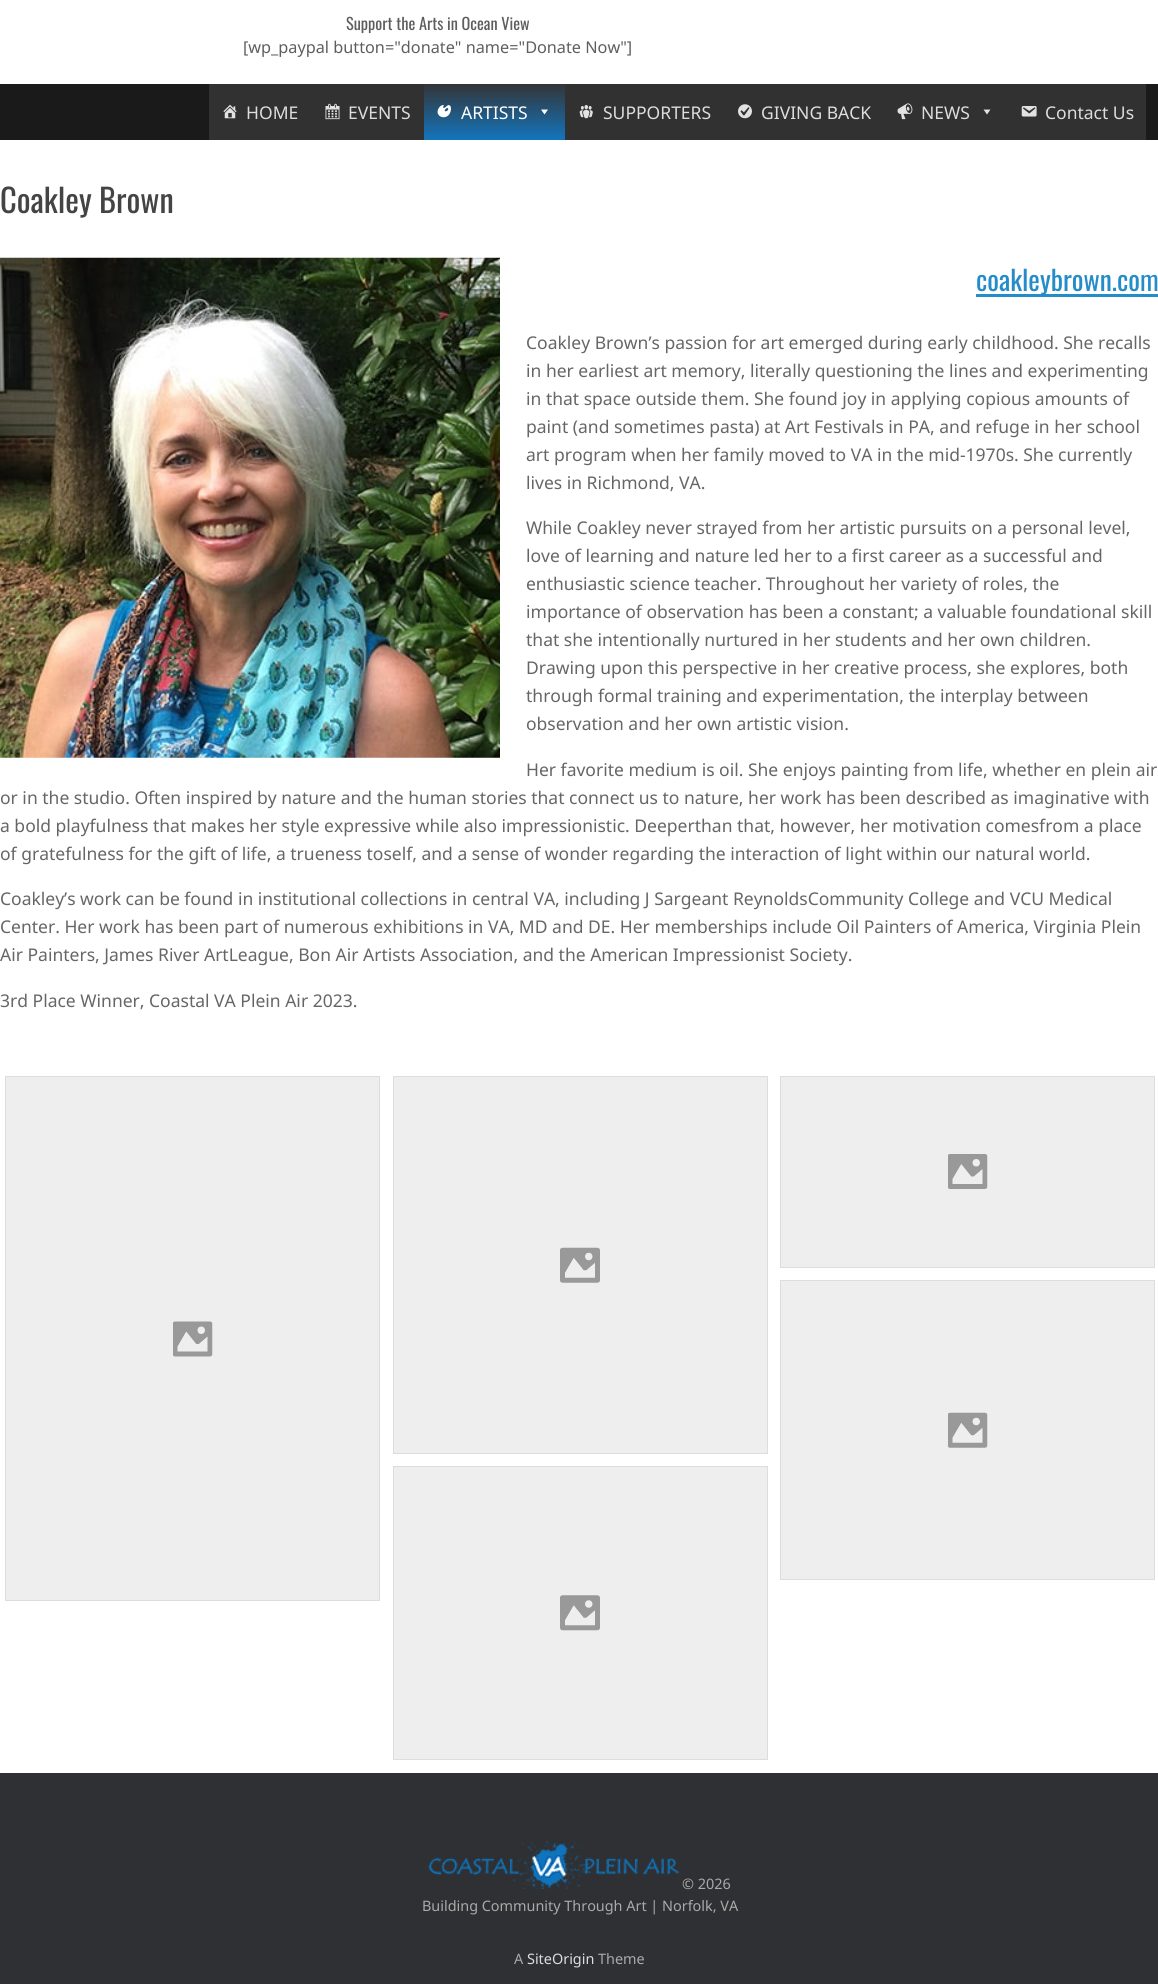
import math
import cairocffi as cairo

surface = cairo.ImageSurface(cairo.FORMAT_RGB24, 1158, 1984)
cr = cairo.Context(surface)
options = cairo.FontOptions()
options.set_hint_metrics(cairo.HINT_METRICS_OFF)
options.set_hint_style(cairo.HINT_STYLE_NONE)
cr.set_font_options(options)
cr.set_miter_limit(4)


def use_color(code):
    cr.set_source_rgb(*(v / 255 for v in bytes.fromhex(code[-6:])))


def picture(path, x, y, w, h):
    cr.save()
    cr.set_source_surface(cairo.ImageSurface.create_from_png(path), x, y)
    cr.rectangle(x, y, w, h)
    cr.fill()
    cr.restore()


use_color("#2f3033")
cr.paint()
use_color("#ffffff")
cr.rectangle(0, 0, 1158, 84)
cr.fill()
cr.select_font_face("Oswald")
cr.set_font_size(16.25)
use_color("#5e5e5e")
cr.move_to(346, 30)
cr.show_text("Support the Arts in Ocean View")
cr.select_font_face("Noto Sans")
cr.move_to(243, 53)
cr.show_text("[wp_paypal button=\"donate\" name=\"Donate Now\"]")
use_color("#1a1a1a")
cr.rectangle(0, 84, 1158, 56)
cr.fill()
use_color("#313131")
cr.rectangle(209, 84, 215, 56)
cr.fill()
picture("img1.png", 223, 104, 14, 15)
cr.set_font_size(17.5)
use_color("#dddddd")
cr.move_to(246, 119)
cr.show_text("HOME")
picture("img2.png", 325, 103, 15, 17)
cr.move_to(348, 119)
cr.show_text("EVENTS")
gradient = cairo.LinearGradient(494, 84, 494, 140)
gradient.add_color_stop_rgba(0, 0.204, 0.208, 0.22, 1)
gradient.add_color_stop_rgba(1, 0.075, 0.459, 0.737, 1)
cr.set_source(gradient)
cr.rectangle(424, 84, 141, 56)
cr.fill()
picture("img3.png", 437, 105, 14, 13)
use_color("#ffffff")
cr.move_to(461, 119)
cr.show_text("ARTISTS")
cr.new_path()
cr.move_to(548, 109.5)
cr.line_to(544.5, 114.5)
cr.line_to(541, 109.5)
cr.close_path()
cr.fill()
use_color("#313131")
cr.rectangle(565, 84, 581, 56)
cr.fill()
picture("img4.png", 579, 105, 14, 14)
use_color("#dddddd")
cr.move_to(603, 119)
cr.show_text("SUPPORTERS")
picture("img5.png", 738, 104, 14, 15)
cr.move_to(761, 119)
cr.show_text("GIVING BACK")
picture("img6.png", 897, 103, 16, 17)
cr.move_to(921, 119)
cr.show_text("NEWS")
use_color("#e2e2e2")
cr.new_path()
cr.move_to(990.5, 109.5)
cr.line_to(987, 114.5)
cr.line_to(983.5, 109.5)
cr.close_path()
cr.fill()
picture("img7.png", 1021, 106, 16, 11)
use_color("#dddddd")
cr.move_to(1045, 119)
cr.show_text("Contact Us")
use_color("#ffffff")
cr.rectangle(0, 140, 1158, 1633)
cr.fill()
cr.select_font_face("Oswald")
cr.set_font_size(32.5)
use_color("#444444")
cr.move_to(0, 213)
cr.show_text("Coakley Brown")
picture("img8.png", 0, 257, 500, 501)
use_color("#248cc8")
cr.rectangle(976, 294, 182, 3)
cr.fill()
cr.set_font_size(27.5)
cr.move_to(976, 291)
cr.show_text("coakleybrown.com")
cr.select_font_face("Noto Sans")
cr.set_font_size(17.5)
use_color("#666666")
cr.move_to(526, 349)
cr.show_text("Coakley Brown’s passion for art emerged during early childhood. She recalls")
cr.move_to(526, 377)
cr.show_text("in her earliest art memory, literally questioning the lines and experimenting")
cr.move_to(526, 405)
cr.show_text("in that space outside them. She found joy in applying copious amounts of")
cr.move_to(526, 433)
cr.show_text("paint (and sometimes pasta) at Art Festivals in PA, and refuge in her school")
cr.move_to(526, 461)
cr.show_text("art program when her family moved to VA in the mid-1970s. She currently")
cr.move_to(526, 489)
cr.show_text("lives in Richmond, VA.")
cr.move_to(526, 534)
cr.show_text("While Coakley never strayed from her artistic pursuits on a personal level,")
cr.move_to(526, 562)
cr.show_text("love of learning and nature led her to a first career as a successful and")
cr.move_to(526, 590)
cr.show_text("enthusiastic science teacher. Throughout her variety of roles, the")
cr.move_to(526, 618)
cr.show_text("importance of observation has been a constant; a valuable foundational skill")
cr.move_to(526, 646)
cr.show_text("that she intentionally nurtured in her students and her own children.")
cr.move_to(526, 674)
cr.show_text("Drawing upon this perspective in her creative process, she explores, both")
cr.move_to(526, 702)
cr.show_text("through formal training and experimentation, the interplay between")
cr.move_to(526, 730)
cr.show_text("observation and her own artistic vision.")
cr.move_to(526, 776)
cr.show_text("Her favorite medium is oil. She enjoys painting from life, whether en plein air")
cr.move_to(0, 804)
cr.show_text("or in the studio. Often inspired by nature and the human stories that connect us to nature, her work has been described as imaginative with")
cr.move_to(0, 832)
cr.show_text("a bold playfulness that makes her style expressive while also impressionistic. Deeperthan that, however, her motivation comesfrom a place")
cr.move_to(0, 860)
cr.show_text("of gratefulness for the gift of life, a trueness toself, and a sense of wonder regarding the interaction of light within our natural world.")
cr.move_to(0, 905)
cr.show_text("Coakley’s work can be found in institutional collections in central VA, including J Sargeant ReynoldsCommunity College and VCU Medical")
cr.move_to(0, 933)
cr.show_text("Center. Her work has been part of numerous exhibitions in VA, MD and DE. Her memberships include Oil Painters of America, Virginia Plein")
cr.move_to(0, 961)
cr.show_text("Air Painters, James River ArtLeague, Bon Air Artists Association, and the American Impressionist Society.")
cr.move_to(0, 1007)
cr.show_text("3rd Place Winner, Coastal VA Plein Air 2023.")
use_color("#eeeeee")
cr.rectangle(5.5, 1076.5, 374, 524)
cr.fill_preserve()
use_color("#dddddd")
cr.set_line_width(1)
cr.stroke()
picture("img9.png", 173, 1321, 40, 36)
use_color("#eeeeee")
cr.rectangle(393.5, 1076.5, 374, 377)
cr.fill_preserve()
use_color("#dddddd")
cr.stroke()
picture("img10.png", 560, 1247, 40, 36)
use_color("#eeeeee")
cr.rectangle(780.5, 1076.5, 374, 191)
cr.fill_preserve()
use_color("#dddddd")
cr.stroke()
picture("img11.png", 948, 1154, 40, 35)
use_color("#eeeeee")
cr.rectangle(780.5, 1280.5, 374, 299)
cr.fill_preserve()
use_color("#dddddd")
cr.stroke()
picture("img12.png", 948, 1412, 40, 36)
use_color("#eeeeee")
cr.rectangle(393.5, 1466.5, 374, 293)
cr.fill_preserve()
use_color("#dddddd")
cr.stroke()
picture("img13.png", 560, 1595, 40, 36)
picture("img14.png", 428, 1841, 251, 48)
cr.set_font_size(14.4)
use_color("#aaaaaa")
cr.move_to(682, 1889)
cr.show_text("© 2026")
cr.move_to(422, 1911)
cr.show_text("Building Community Through Art | Norfolk, VA")
cr.move_to(514, 1964)
cr.show_text("A")
use_color("#dddddd")
cr.move_to(527, 1964)
cr.show_text("SiteOrigin")
use_color("#aaaaaa")
cr.move_to(598, 1964)
cr.show_text("Theme")
surface.write_to_png("result.png")
